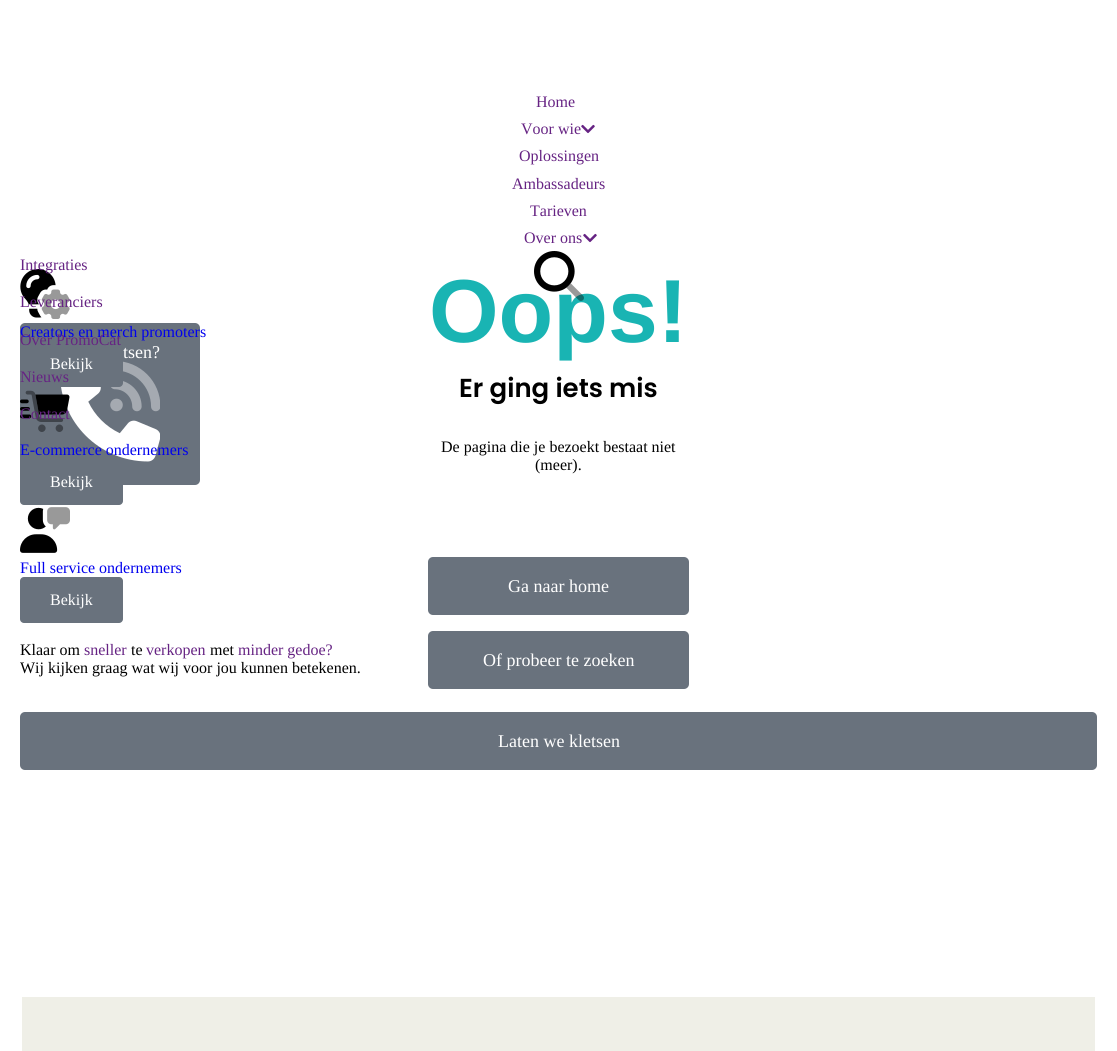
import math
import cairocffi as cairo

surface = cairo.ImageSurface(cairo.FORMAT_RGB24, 1117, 1051)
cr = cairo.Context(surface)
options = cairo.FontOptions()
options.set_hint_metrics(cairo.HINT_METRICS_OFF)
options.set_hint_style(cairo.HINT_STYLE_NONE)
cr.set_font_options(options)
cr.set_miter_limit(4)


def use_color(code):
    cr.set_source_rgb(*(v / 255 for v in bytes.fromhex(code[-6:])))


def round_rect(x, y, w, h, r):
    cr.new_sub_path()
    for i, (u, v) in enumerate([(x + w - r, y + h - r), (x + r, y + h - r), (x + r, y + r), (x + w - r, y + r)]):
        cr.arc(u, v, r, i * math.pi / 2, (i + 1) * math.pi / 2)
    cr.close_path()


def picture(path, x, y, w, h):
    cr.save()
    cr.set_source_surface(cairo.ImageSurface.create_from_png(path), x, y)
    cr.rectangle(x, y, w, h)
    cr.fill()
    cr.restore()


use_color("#ffffff")
cr.paint()
cr.select_font_face("Liberation Serif")
cr.set_font_size(16)
use_color("#662383")
cr.move_to(536, 107)
cr.show_text("Home")
cr.move_to(521, 134)
cr.show_text("Voor wie")
picture("img1.png", 581, 124, 14, 10)
picture("img2.png", 20, 269, 50, 50)
use_color("#69727d")
round_rect(20, 323, 180, 162, 5)
cr.fill()
use_color("#0000ee")
cr.move_to(20, 337)
cr.show_text("Creators en merch promoters")
picture("img6.png", 61, 361, 99, 101)
use_color("#69727d")
round_rect(20, 341, 103, 46, 4)
cr.fill()
use_color("#ffffff")
cr.move_to(50, 369)
cr.show_text("Bekijk")
picture("img3.png", 20, 390, 50, 42)
use_color("#0000ee")
cr.move_to(20, 455)
cr.show_text("E-commerce ondernemers")
use_color("#69727d")
round_rect(20, 459, 103, 46, 4)
cr.fill()
use_color("#ffffff")
cr.move_to(50, 487)
cr.show_text("Bekijk")
picture("img4.png", 20, 507, 50, 46)
use_color("#0000ee")
cr.move_to(20, 573)
cr.show_text("Full service ondernemers")
use_color("#69727d")
round_rect(20, 577, 103, 46, 4)
cr.fill()
use_color("#ffffff")
cr.move_to(50, 605)
cr.show_text("Bekijk")
use_color("#000000")
cr.move_to(20, 655)
cr.show_text("Klaar om")
use_color("#662383")
cr.move_to(84, 655)
cr.show_text("sneller")
use_color("#000000")
cr.move_to(131, 655)
cr.show_text("te")
use_color("#662383")
cr.move_to(146, 655)
cr.show_text("verkopen")
use_color("#000000")
cr.move_to(210, 655)
cr.show_text("met")
use_color("#662383")
cr.move_to(238, 655)
cr.show_text("minder gedoe?")
use_color("#000000")
cr.move_to(20, 673)
cr.show_text("Wij kijken graag wat wij voor jou kunnen betekenen.")
use_color("#69727d")
round_rect(20, 712, 1077, 58, 5)
cr.fill()
cr.set_font_size(18)
use_color("#ffffff")
cr.move_to(498, 747)
cr.show_text("Laten we kletsen")
cr.set_font_size(16)
use_color("#662383")
cr.move_to(519, 161)
cr.show_text("Oplossingen")
cr.move_to(512, 189)
cr.show_text("Ambassadeurs")
cr.move_to(530, 216)
cr.show_text("Tarieven")
cr.move_to(524, 243)
cr.show_text("Over ons")
picture("img1.png", 583, 233, 14, 10)
cr.move_to(20, 270)
cr.show_text("Integraties")
cr.move_to(20, 307)
cr.show_text("Leveranciers")
cr.move_to(20, 345)
cr.show_text("Over PromoCat")
cr.move_to(20, 382)
cr.show_text("Nieuws")
cr.move_to(20, 419)
cr.show_text("Contact")
cr.select_font_face("Liberation Sans", cairo.FONT_SLANT_NORMAL, cairo.FONT_WEIGHT_BOLD)
cr.set_font_size(89.5)
use_color("#19b4b3")
cr.move_to(429, 342)
cr.show_text("Oops!")
picture("img5.png", 534, 251, 50, 50)
cr.select_font_face("Liberation Serif")
cr.set_font_size(18)
use_color("#ffffff")
cr.move_to(123, 358)
cr.show_text("tsen?")
cr.select_font_face("Poppins SemiBold")
cr.set_font_size(26)
use_color("#000000")
cr.move_to(459, 397)
cr.show_text("Er ging iets mis")
cr.select_font_face("Liberation Serif")
cr.set_font_size(16)
cr.move_to(441, 452)
cr.show_text("De pagina die je bezoekt bestaat niet")
cr.move_to(535, 470)
cr.show_text("(meer).")
use_color("#69727d")
round_rect(428, 557, 261, 58, 5)
cr.fill()
cr.set_font_size(18)
use_color("#ffffff")
cr.move_to(508, 592)
cr.show_text("Ga naar home")
use_color("#69727d")
round_rect(428, 631, 261, 58, 5)
cr.fill()
use_color("#ffffff")
cr.move_to(483, 666)
cr.show_text("Of probeer te zoeken")
use_color("#efefe7")
cr.rectangle(22, 997, 1073, 54)
cr.fill()
surface.write_to_png("result.png")
